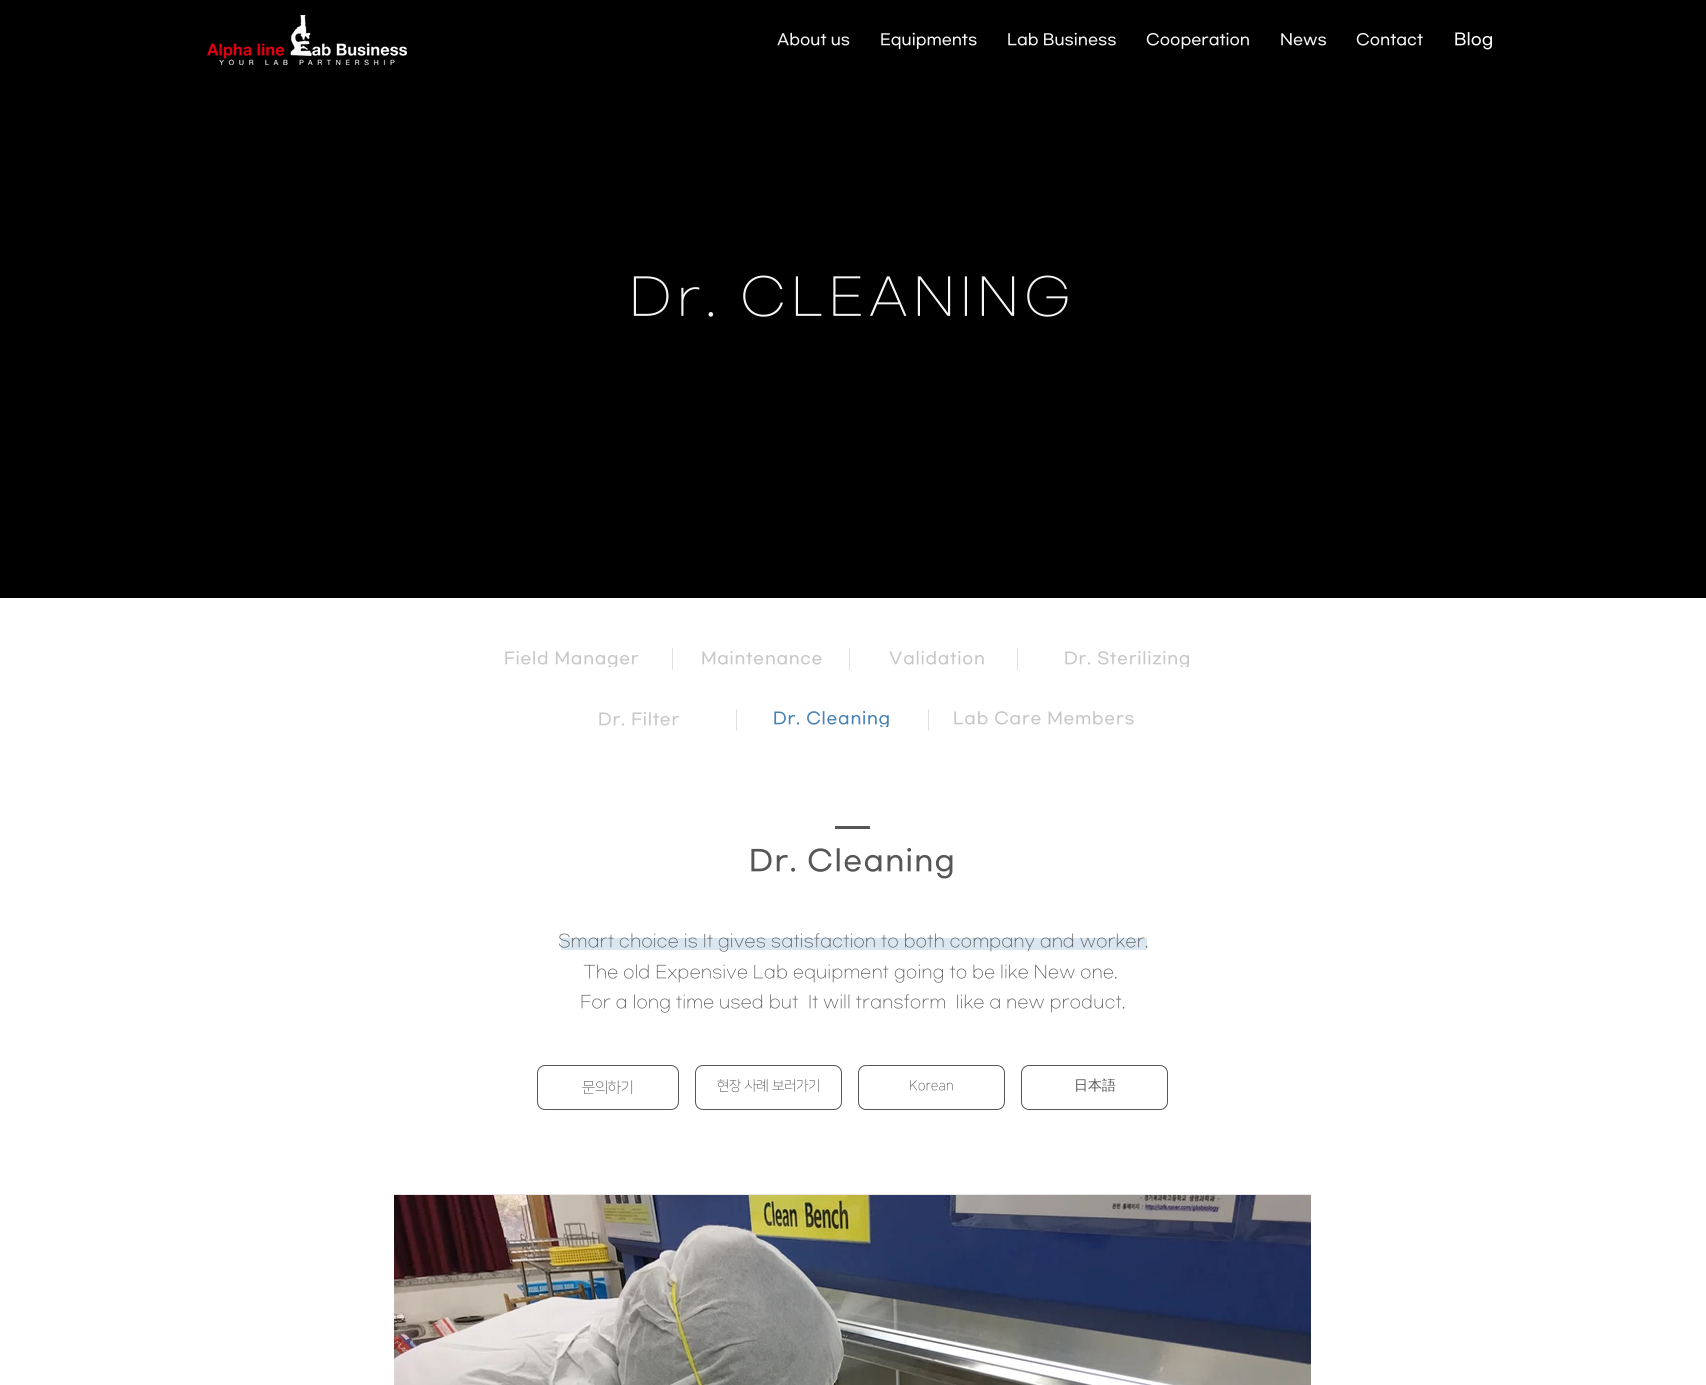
import math
import cairocffi as cairo

surface = cairo.ImageSurface(cairo.FORMAT_RGB24, 1706, 1385)
cr = cairo.Context(surface)
options = cairo.FontOptions()
options.set_hint_metrics(cairo.HINT_METRICS_OFF)
options.set_hint_style(cairo.HINT_STYLE_NONE)
cr.set_font_options(options)
cr.set_miter_limit(4)


def use_color(code):
    cr.set_source_rgb(*(v / 255 for v in bytes.fromhex(code[-6:])))


def spaced_text(x, y, s, letter, word):
    cr.move_to(x, y)
    for ch in s:
        cr.show_text(ch)
        cr.rel_move_to(letter + word * (ch == ' '), 0)


def round_rect(x, y, w, h, r):
    cr.new_sub_path()
    for i, (u, v) in enumerate([(x + w - r, y + h - r), (x + r, y + h - r), (x + r, y + r), (x + w - r, y + r)]):
        cr.arc(u, v, r, i * math.pi / 2, (i + 1) * math.pi / 2)
    cr.close_path()


def picture(path, x, y, w, h):
    cr.save()
    cr.set_source_surface(cairo.ImageSurface.create_from_png(path), x, y)
    cr.rectangle(x, y, w, h)
    cr.fill()
    cr.restore()


use_color("#ffffff")
cr.paint()
use_color("#000000")
cr.rectangle(0, 0, 1706, 598)
cr.fill()
picture("img1.png", 207, 15, 200, 50)
cr.select_font_face("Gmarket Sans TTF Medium")
cr.set_font_size(15)
use_color("#f5f5f5")
cr.move_to(777, 44)
cr.show_text("About us")
cr.move_to(880, 44)
cr.show_text("Equipments")
cr.move_to(1007, 44)
cr.show_text("Lab Business")
cr.move_to(1146, 44)
cr.show_text("Cooperation")
cr.move_to(1280, 44)
cr.show_text("News")
cr.move_to(1356, 44)
cr.show_text("Contact")
cr.set_font_size(16)
use_color("#ffffff")
cr.move_to(1454, 44)
cr.show_text("Blog")
cr.select_font_face("Gmarket Sans TTF Light")
cr.set_font_size(50)
use_color("#f5f5f5")
spaced_text(629, 312, "Dr. CLEANING", 5, 0)
cr.save()
cr.rectangle(504, 649, 135, 18)
cr.clip()
cr.select_font_face("Gmarket Sans TTF Medium")
cr.set_font_size(16)
use_color("#c7c7c7")
spaced_text(504, 663, "Field Manager", 0.75, 0)
cr.restore()
use_color("#e1e1e1")
cr.rectangle(672, 648, 1, 22)
cr.fill()
cr.select_font_face("Gmarket Sans TTF Medium")
cr.set_font_size(16)
use_color("#c7c7c7")
spaced_text(701, 663, "Maintenance", 0.75, 0)
use_color("#e1e1e1")
cr.rectangle(849, 648, 1, 22)
cr.fill()
use_color("#c7c7c7")
spaced_text(889, 663, "Validation", 0.75, 0)
use_color("#e1e1e1")
cr.rectangle(1017, 648, 1, 22)
cr.fill()
cr.save()
cr.rectangle(1064, 649, 127, 18)
cr.clip()
use_color("#c7c7c7")
spaced_text(1064, 663, "Dr. Sterilizing", 0.75, 0)
cr.restore()
use_color("#c7c7c7")
spaced_text(598, 724, "Dr. Filter", 0.75, 0)
use_color("#e1e1e1")
cr.rectangle(736, 709, 1, 22)
cr.fill()
cr.save()
cr.rectangle(773, 709, 119, 18)
cr.clip()
use_color("#4682b4")
spaced_text(773, 723, "Dr. Cleaning", 0.75, 0)
cr.restore()
cr.rectangle(928, 709, 1, 22)
cr.fill()
use_color("#c7c7c7")
spaced_text(953, 723, "Lab Care Members", 0.75, 0)
use_color("#565656")
cr.rectangle(835, 826, 35, 3)
cr.fill()
cr.set_font_size(28)
spaced_text(749, 869, "Dr. Cleaning", 1.4, 0)
use_color("#dae6f0")
cr.rectangle(561, 938, 586, 12)
cr.fill()
cr.select_font_face("Gmarket Sans TTF Light")
cr.set_font_size(17)
use_color("#565656")
cr.move_to(558, 946)
cr.show_text("Smart choice is It gives satisfaction to both company and worker.")
cr.move_to(583, 977)
cr.show_text("The old Expensive Lab equipment going to be like New one.")
cr.move_to(580, 1007)
cr.show_text("For a long time used but  It will transform  like a new product.")
round_rect(537.5, 1065.5, 141, 44, 7.5)
cr.set_line_width(1)
cr.stroke()
cr.select_font_face("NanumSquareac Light")
cr.set_font_size(15)
cr.move_to(582, 1092)
cr.show_text("문의하기")
round_rect(695.5, 1065.5, 146, 44, 7.5)
cr.stroke()
cr.set_font_size(14)
cr.move_to(717, 1090)
cr.show_text("현장 사례 보러가기")
round_rect(858.5, 1065.5, 146, 44, 7.5)
cr.stroke()
cr.move_to(909, 1090)
cr.show_text("Korean")
round_rect(1021.5, 1065.5, 146, 44, 7.5)
cr.stroke()
cr.select_font_face("WenQuanYi Zen Hei Medium")
cr.move_to(1074, 1090)
cr.show_text("日本語")
use_color("#e8e6e6")
cr.rectangle(394, 1194, 917, 1)
cr.fill()
picture("img2.png", 394, 1195, 917, 190)
surface.write_to_png("result.png")
